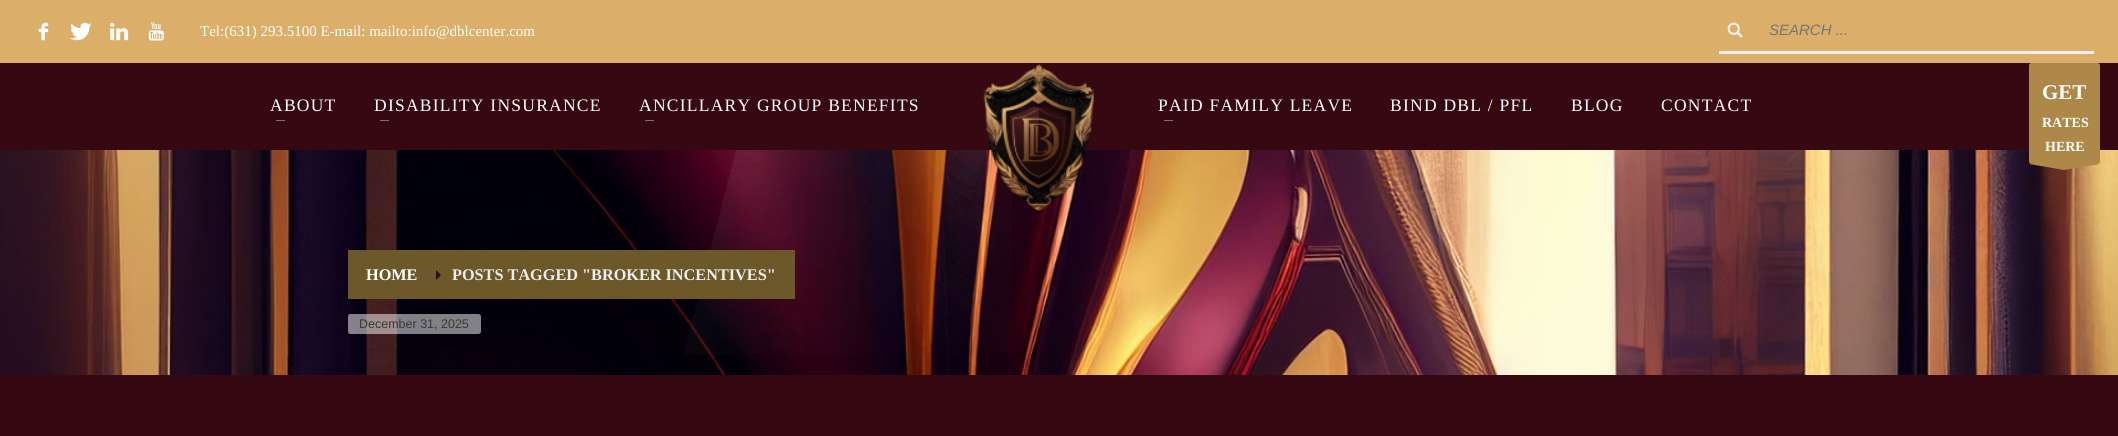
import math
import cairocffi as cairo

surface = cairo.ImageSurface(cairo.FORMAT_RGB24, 2118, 436)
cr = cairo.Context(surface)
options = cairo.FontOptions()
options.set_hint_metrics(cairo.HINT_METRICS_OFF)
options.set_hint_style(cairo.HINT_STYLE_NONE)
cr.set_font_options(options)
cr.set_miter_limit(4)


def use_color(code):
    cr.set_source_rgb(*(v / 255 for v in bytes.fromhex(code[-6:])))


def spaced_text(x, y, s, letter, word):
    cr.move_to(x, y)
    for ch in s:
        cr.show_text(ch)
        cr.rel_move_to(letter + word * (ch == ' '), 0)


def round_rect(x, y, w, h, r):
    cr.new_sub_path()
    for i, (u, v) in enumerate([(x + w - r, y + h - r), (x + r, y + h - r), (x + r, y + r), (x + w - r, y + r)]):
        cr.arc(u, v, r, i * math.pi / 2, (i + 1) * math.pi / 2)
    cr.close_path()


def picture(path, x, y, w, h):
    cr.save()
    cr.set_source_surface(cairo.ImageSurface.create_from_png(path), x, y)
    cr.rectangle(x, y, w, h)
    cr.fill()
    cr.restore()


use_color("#350812")
cr.paint()
use_color("#dbae6a")
cr.rectangle(0, 0, 2118, 63)
cr.fill()
picture("img1.png", 38, 22, 11, 19)
picture("img2.png", 70, 22, 22, 19)
picture("img3.png", 110, 22, 19, 19)
picture("img4.png", 148, 22, 16, 19)
cr.select_font_face("Liberation Serif")
cr.set_font_size(15)
use_color("#ffffff")
cr.move_to(200, 36)
cr.show_text("Tel:(631) 293.5100 E-mail: mailto:info@dblcenter.com")
picture("img5.png", 1727, 22, 16, 16)
use_color("#efefef")
cr.rectangle(1719, 51, 375, 3)
cr.fill()
cr.select_font_face("Liberation Sans", cairo.FONT_SLANT_ITALIC)
use_color("#757575")
cr.move_to(1769, 35)
cr.show_text("SEARCH ...")
cr.select_font_face("Liberation Serif")
cr.set_font_size(17.5)
use_color("#ffffff")
spaced_text(270, 111, "ABOUT", 1.25, 0)
use_color("#866b71")
cr.rectangle(276, 120, 9, 1)
cr.fill()
use_color("#ffffff")
spaced_text(374, 111, "DISABILITY INSURANCE", 1.25, 0)
use_color("#866b71")
cr.rectangle(380, 120, 9, 1)
cr.fill()
use_color("#ffffff")
spaced_text(639, 111, "ANCILLARY GROUP BENEFITS", 1.25, 0)
use_color("#866b71")
cr.rectangle(645, 120, 9, 1)
cr.fill()
picture("img7.png", 0, 150, 2118, 225)
picture("img8.png", 684, 150, 328, 204)
picture("img6.png", 983, 64, 111, 147)
use_color("#ffffff")
spaced_text(1158, 111, "PAID FAMILY LEAVE", 1.25, 0)
use_color("#866b71")
cr.rectangle(1164, 120, 9, 1)
cr.fill()
use_color("#ffffff")
spaced_text(1390, 111, "BIND DBL / PFL", 1.25, 0)
spaced_text(1571, 111, "BLOG", 1.25, 0)
spaced_text(1661, 111, "CONTACT", 1.25, 0)
use_color("#ad8848")
round_rect(2029, 63, 71, 101, 2.5)
cr.fill()
cr.select_font_face("Liberation Serif", cairo.FONT_SLANT_NORMAL, cairo.FONT_WEIGHT_BOLD)
cr.set_font_size(21)
use_color("#ffffff")
cr.move_to(2042, 99)
cr.show_text("GET")
cr.set_font_size(14)
cr.move_to(2042, 127)
cr.show_text("RATES")
cr.move_to(2045, 151)
cr.show_text("HERE")
use_color("#ad8848")
cr.set_fill_rule(cairo.FILL_RULE_EVEN_ODD)
cr.new_path()
cr.move_to(2100, 164)
cr.line_to(2064, 170)
cr.line_to(2029, 164)
cr.close_path()
cr.fill()
use_color("#6d5829")
cr.rectangle(348, 250, 447, 49)
cr.fill()
cr.set_font_size(16.25)
use_color("#ffffff")
cr.move_to(366, 280)
cr.show_text("HOME")
use_color("#350812")
cr.set_fill_rule(cairo.FILL_RULE_WINDING)
cr.new_path()
cr.move_to(436, 280)
cr.line_to(436, 270)
cr.line_to(441, 275)
cr.close_path()
cr.fill()
use_color("#eeeeee")
cr.move_to(452, 280)
cr.show_text("POSTS TAGGED \"BROKER INCENTIVES\"")
cr.set_source_rgba(1, 1, 1, 0.5)
round_rect(348, 314, 133, 20, 2.5)
cr.fill()
cr.select_font_face("Liberation Sans")
cr.set_font_size(12.5)
use_color("#383838")
cr.move_to(359, 328)
cr.show_text("December 31, 2025")
surface.write_to_png("result.png")
